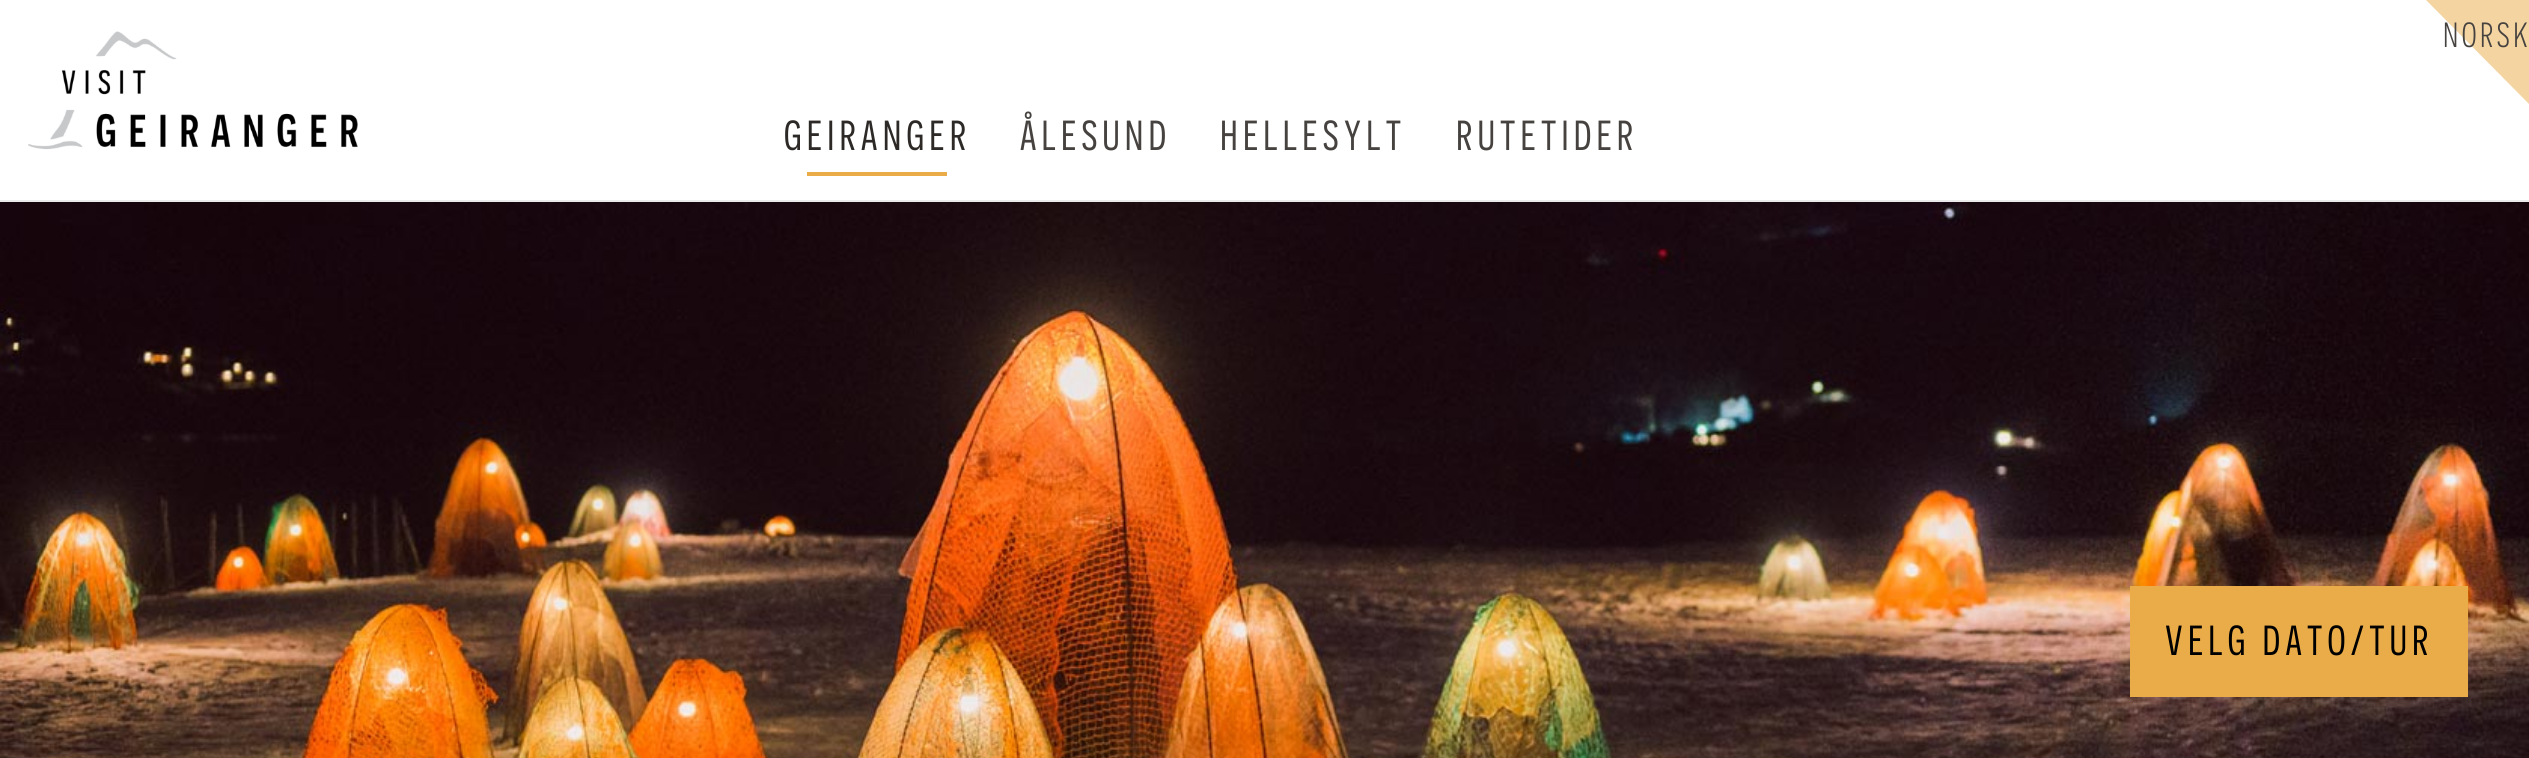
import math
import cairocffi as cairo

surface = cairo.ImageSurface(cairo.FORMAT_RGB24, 2529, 758)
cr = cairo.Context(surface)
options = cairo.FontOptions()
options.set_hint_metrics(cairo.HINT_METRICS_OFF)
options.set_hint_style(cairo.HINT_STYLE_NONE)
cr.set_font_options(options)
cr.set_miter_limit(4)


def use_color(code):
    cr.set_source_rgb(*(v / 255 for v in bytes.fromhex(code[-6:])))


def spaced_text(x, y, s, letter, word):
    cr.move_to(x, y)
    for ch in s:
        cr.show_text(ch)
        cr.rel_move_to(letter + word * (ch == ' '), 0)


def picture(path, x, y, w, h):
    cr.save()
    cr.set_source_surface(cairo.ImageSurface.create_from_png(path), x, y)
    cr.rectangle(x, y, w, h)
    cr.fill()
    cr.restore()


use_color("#ffffff")
cr.paint()
use_color("#f4d5a2")
cr.new_path()
cr.move_to(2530, 0)
cr.line_to(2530, 105)
cr.line_to(2426, 0)
cr.close_path()
cr.fill()
cr.select_font_face("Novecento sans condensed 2")
cr.set_font_size(35)
use_color("#46423f")
spaced_text(2443, 47, "NORSK", 3.5, 0)
use_color("#ebebeb")
cr.rectangle(0, 200, 2529, 2)
cr.fill()
picture("img1.png", 28, 31, 330, 119)
cr.select_font_face("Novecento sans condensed")
cr.set_font_size(42)
use_color("#2c2927")
spaced_text(784, 150, "GEIRANGER", 5.25, 0)
use_color("#eaac48")
cr.rectangle(807, 172, 140, 4)
cr.fill()
use_color("#46423f")
spaced_text(1020, 150, "ÅLESUND", 5.25, 0)
spaced_text(1220, 150, "HELLESYLT", 5.25, 0)
spaced_text(1456, 150, "RUTETIDER", 5.25, 0)
picture("img2.png", 0, 202, 2529, 556)
use_color("#eaac48")
cr.rectangle(2130, 586, 338, 111)
cr.fill()
use_color("#000000")
spaced_text(2165, 655, "VELG DATO/TUR", 5.25, 0)
surface.write_to_png("result.png")
